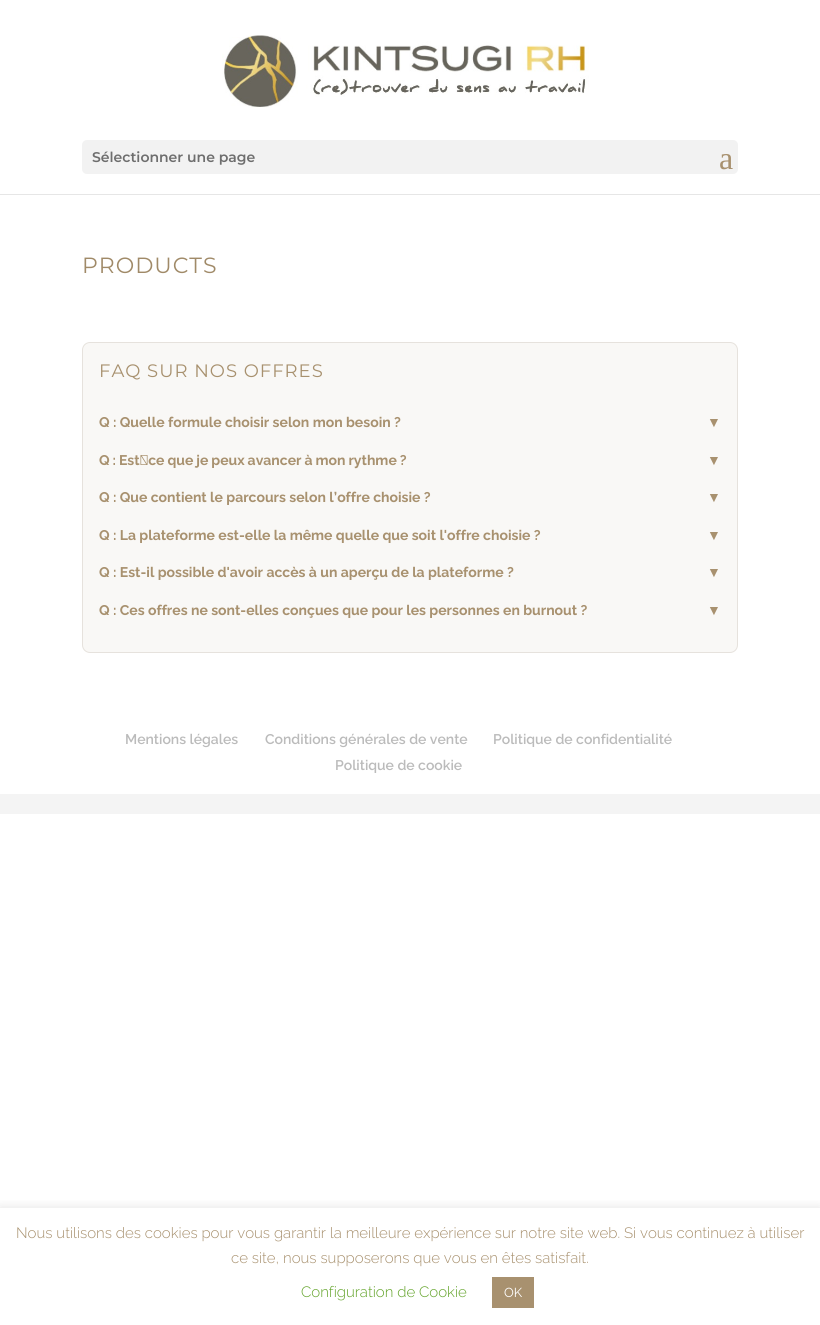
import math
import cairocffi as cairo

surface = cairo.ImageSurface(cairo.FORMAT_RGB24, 820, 1325)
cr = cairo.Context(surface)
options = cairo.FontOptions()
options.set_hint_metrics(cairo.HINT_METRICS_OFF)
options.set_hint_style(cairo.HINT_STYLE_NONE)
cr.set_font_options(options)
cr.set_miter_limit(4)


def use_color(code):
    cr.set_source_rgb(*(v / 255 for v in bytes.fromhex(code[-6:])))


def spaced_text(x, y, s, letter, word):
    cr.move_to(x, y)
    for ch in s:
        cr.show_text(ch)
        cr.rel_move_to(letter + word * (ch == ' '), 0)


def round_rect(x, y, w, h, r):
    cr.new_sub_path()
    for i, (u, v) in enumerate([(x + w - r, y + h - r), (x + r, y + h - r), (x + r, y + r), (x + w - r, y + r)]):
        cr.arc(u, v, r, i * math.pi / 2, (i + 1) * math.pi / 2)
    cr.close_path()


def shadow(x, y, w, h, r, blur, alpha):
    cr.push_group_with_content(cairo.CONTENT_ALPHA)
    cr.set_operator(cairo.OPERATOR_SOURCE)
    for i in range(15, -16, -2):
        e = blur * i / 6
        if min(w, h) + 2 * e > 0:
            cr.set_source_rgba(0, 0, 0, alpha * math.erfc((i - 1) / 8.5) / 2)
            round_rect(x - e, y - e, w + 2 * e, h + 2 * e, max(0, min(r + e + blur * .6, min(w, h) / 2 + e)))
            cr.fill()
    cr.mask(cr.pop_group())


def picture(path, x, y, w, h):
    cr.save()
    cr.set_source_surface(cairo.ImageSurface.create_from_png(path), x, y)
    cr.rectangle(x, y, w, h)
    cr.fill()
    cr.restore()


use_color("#ffffff")
cr.paint()
use_color("#e6e6e6")
cr.rectangle(0, 194, 820, 1)
cr.fill()
picture("img1.png", 222, 35, 367, 73)
use_color("#f2f2f2")
round_rect(82, 140, 656, 34, 5)
cr.fill()
cr.select_font_face("Montserrat SemiBold")
cr.set_font_size(14)
use_color("#6e6e6e")
cr.move_to(92, 162)
cr.show_text("Sélectionner une page")
cr.select_font_face("Liberation Serif")
cr.set_font_size(32)
use_color("#a8916f")
cr.move_to(719, 169)
cr.show_text("a")
cr.select_font_face("Montserrat")
cr.set_font_size(22)
use_color("#a08a68")
spaced_text(82, 273, "PRODUCTS", 1, 0)
use_color("#f9f8f6")
round_rect(82.5, 342.5, 655, 310, 7.5)
cr.fill_preserve()
use_color("#e6e2dd")
cr.set_line_width(1)
cr.stroke()
cr.set_font_size(18)
use_color("#a8916f")
spaced_text(99, 377, "FAQ SUR NOS OFFRES", 1, 0)
cr.select_font_face("Raleway", cairo.FONT_SLANT_NORMAL, cairo.FONT_WEIGHT_BOLD)
cr.set_font_size(14)
cr.move_to(99, 427)
cr.show_text("Q : Quelle formule choisir selon mon besoin ?")
cr.select_font_face("Liberation Sans", cairo.FONT_SLANT_NORMAL, cairo.FONT_WEIGHT_BOLD)
cr.move_to(707, 427)
cr.show_text("▼")
cr.select_font_face("Raleway", cairo.FONT_SLANT_NORMAL, cairo.FONT_WEIGHT_BOLD)
spaced_text(99, 465, "Q : Est‑ce que je peux avancer à mon rythme ?", 0, -0.4)
cr.select_font_face("Liberation Sans", cairo.FONT_SLANT_NORMAL, cairo.FONT_WEIGHT_BOLD)
cr.move_to(707, 465)
cr.show_text("▼")
cr.select_font_face("Raleway", cairo.FONT_SLANT_NORMAL, cairo.FONT_WEIGHT_BOLD)
cr.move_to(99, 502)
cr.show_text("Q : Que contient le parcours selon l’offre choisie ?")
cr.select_font_face("Liberation Sans", cairo.FONT_SLANT_NORMAL, cairo.FONT_WEIGHT_BOLD)
cr.move_to(707, 502)
cr.show_text("▼")
cr.select_font_face("Raleway", cairo.FONT_SLANT_NORMAL, cairo.FONT_WEIGHT_BOLD)
cr.move_to(99, 540)
cr.show_text("Q : La plateforme est-elle la même quelle que soit l'offre choisie ?")
cr.select_font_face("Liberation Sans", cairo.FONT_SLANT_NORMAL, cairo.FONT_WEIGHT_BOLD)
cr.move_to(707, 540)
cr.show_text("▼")
cr.select_font_face("Raleway", cairo.FONT_SLANT_NORMAL, cairo.FONT_WEIGHT_BOLD)
cr.move_to(99, 577)
cr.show_text("Q : Est-il possible d'avoir accès à un aperçu de la plateforme ?")
cr.select_font_face("Liberation Sans", cairo.FONT_SLANT_NORMAL, cairo.FONT_WEIGHT_BOLD)
cr.move_to(707, 577)
cr.show_text("▼")
cr.select_font_face("Raleway", cairo.FONT_SLANT_NORMAL, cairo.FONT_WEIGHT_BOLD)
cr.move_to(99, 615)
cr.show_text("Q : Ces offres ne sont-elles conçues que pour les personnes en burnout ?")
cr.select_font_face("Liberation Sans", cairo.FONT_SLANT_NORMAL, cairo.FONT_WEIGHT_BOLD)
cr.move_to(707, 615)
cr.show_text("▼")
cr.select_font_face("Raleway SemiBold")
use_color("#bbbbbb")
cr.move_to(125, 744)
cr.show_text("Mentions légales")
cr.move_to(265, 744)
cr.show_text("Conditions générales de vente")
cr.move_to(493, 744)
cr.show_text("Politique de confidentialité")
cr.move_to(335, 770)
cr.show_text("Politique de cookie")
use_color("#f4f4f4")
cr.rectangle(0, 794, 820, 20)
cr.fill()
cr.save()
cr.rectangle(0, 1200, 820, 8)
cr.clip()
use_color("#acabab")
shadow(0, 1207, 820, 117, 0, 5, 0.3)
cr.restore()
cr.select_font_face("Raleway Light")
cr.set_font_size(15)
use_color("#a8916f")
cr.move_to(16, 1238)
cr.show_text("Nous utilisons des cookies pour vous garantir la meilleure expérience sur notre site web. Si vous continuez à utiliser")
cr.move_to(231, 1263)
cr.show_text("ce site, nous supposerons que vous en êtes satisfait.")
use_color("#62a329")
cr.move_to(301, 1297)
cr.show_text("Configuration de Cookie")
use_color("#a8916f")
cr.rectangle(492, 1277, 42, 31)
cr.fill()
cr.select_font_face("Raleway")
cr.set_font_size(13)
use_color("#ffffff")
cr.move_to(504, 1297)
cr.show_text("OK")
surface.write_to_png("result.png")
